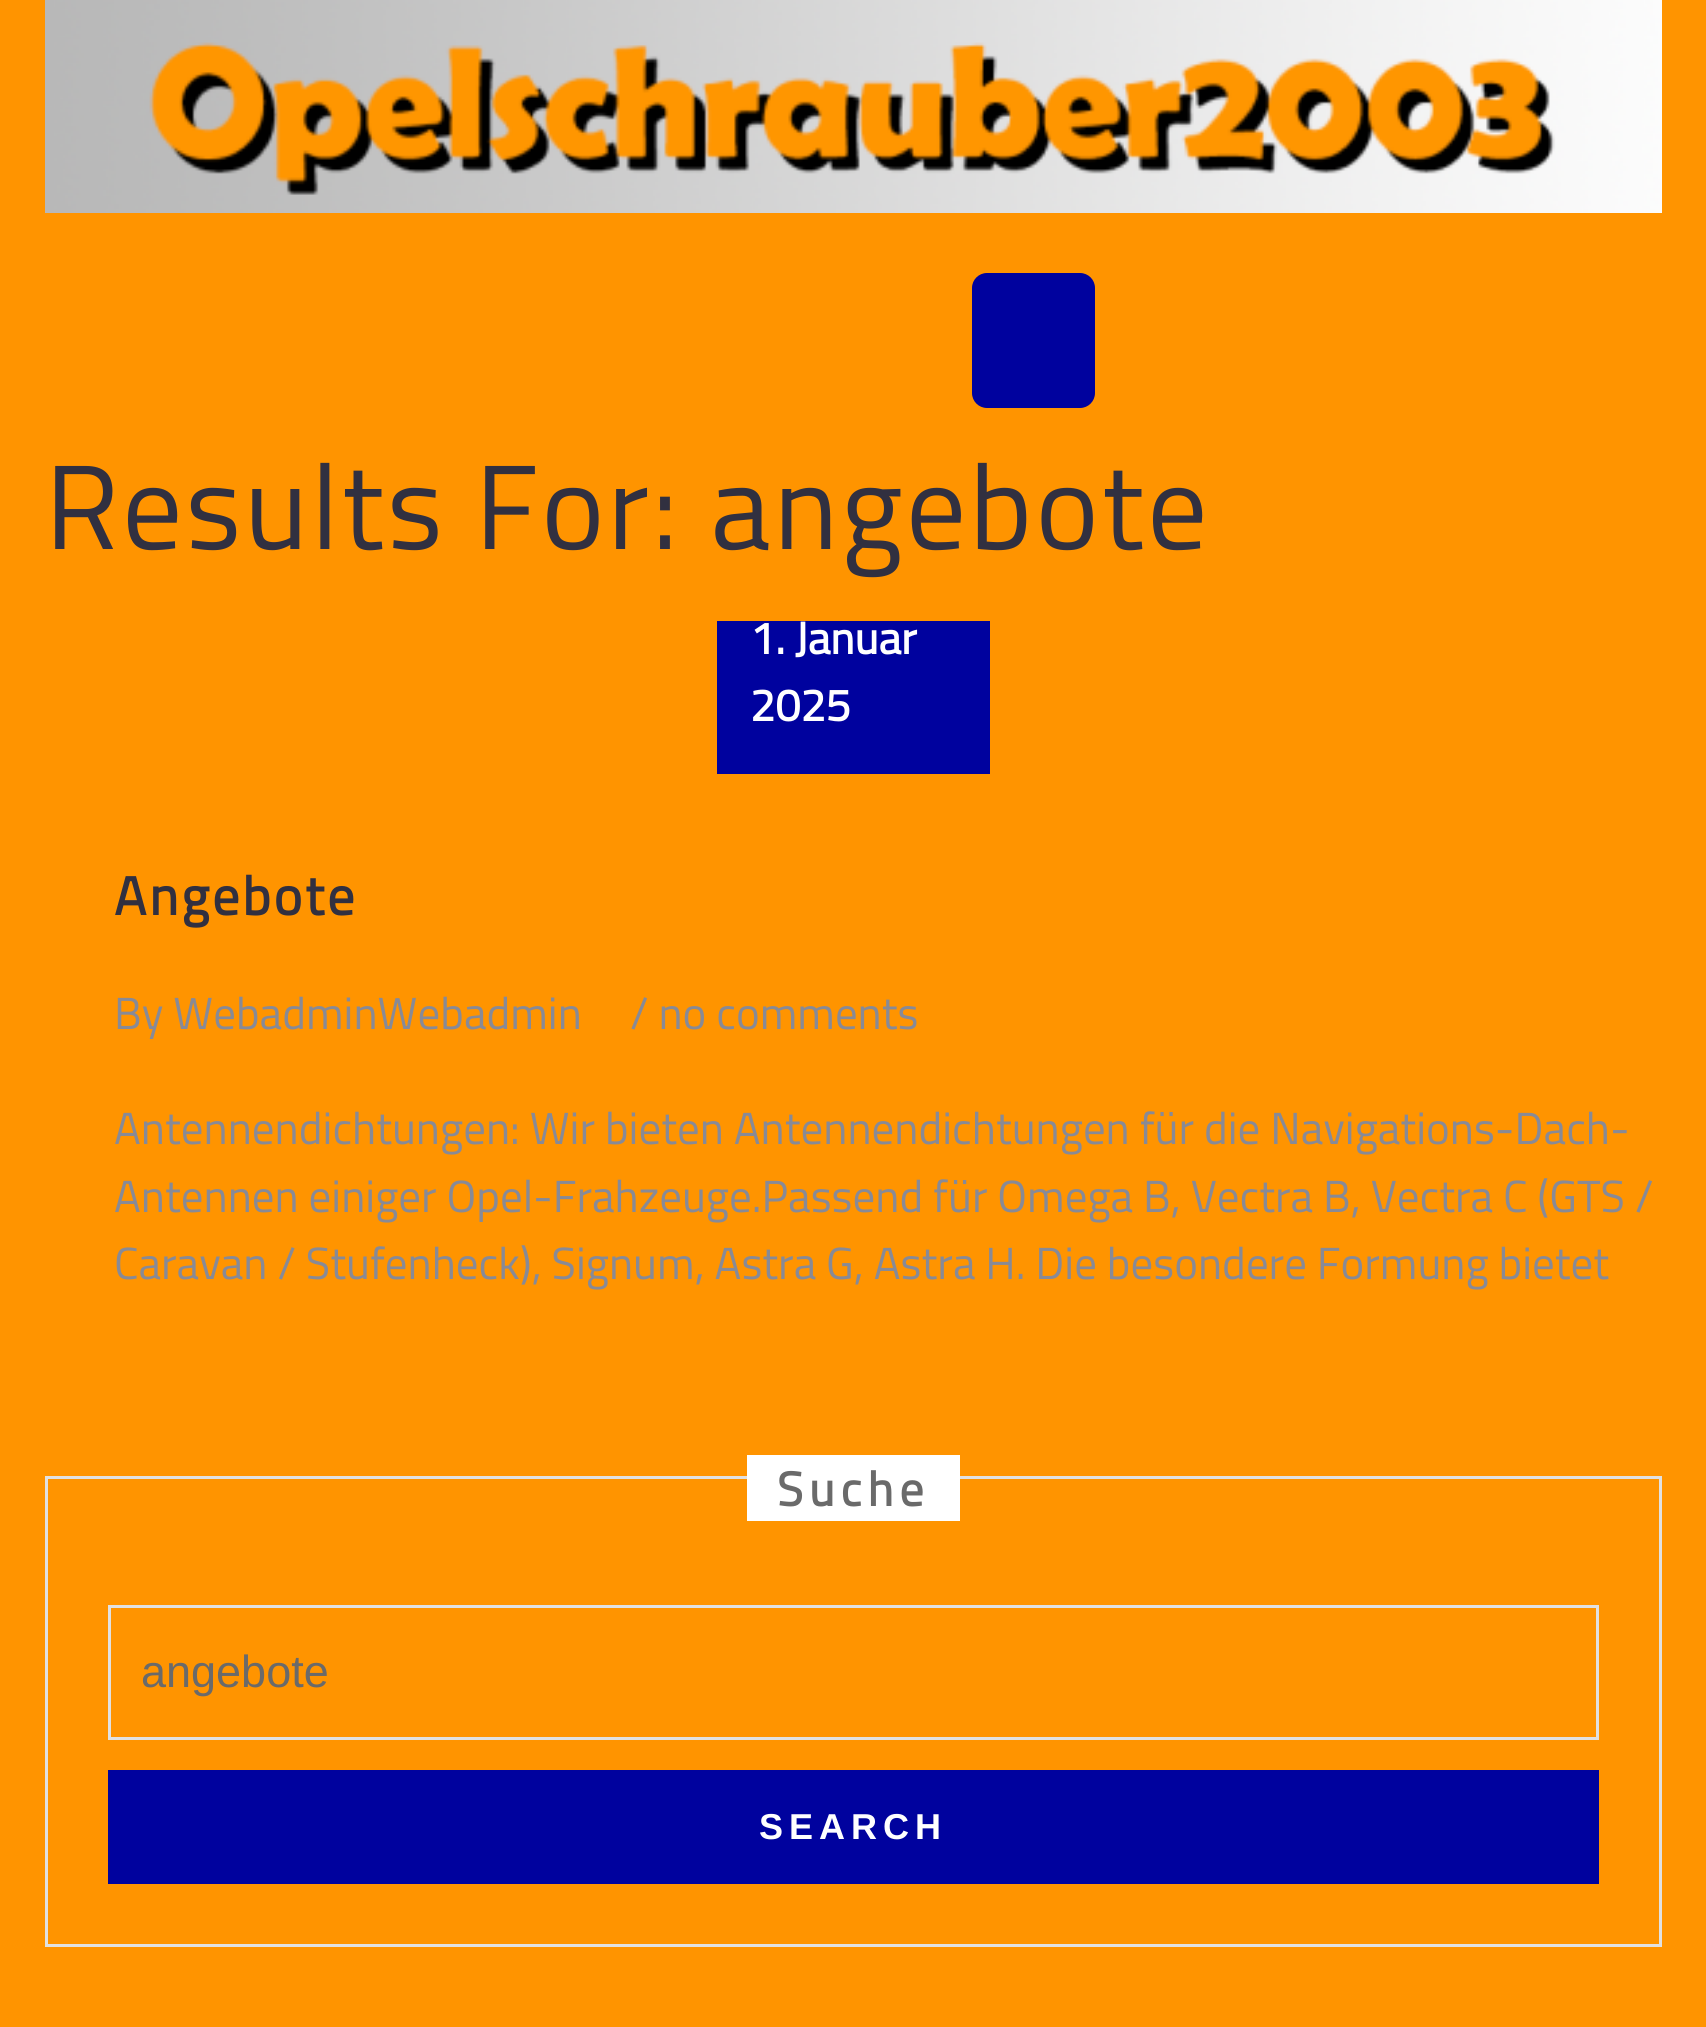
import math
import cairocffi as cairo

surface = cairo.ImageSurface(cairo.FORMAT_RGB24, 1706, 2027)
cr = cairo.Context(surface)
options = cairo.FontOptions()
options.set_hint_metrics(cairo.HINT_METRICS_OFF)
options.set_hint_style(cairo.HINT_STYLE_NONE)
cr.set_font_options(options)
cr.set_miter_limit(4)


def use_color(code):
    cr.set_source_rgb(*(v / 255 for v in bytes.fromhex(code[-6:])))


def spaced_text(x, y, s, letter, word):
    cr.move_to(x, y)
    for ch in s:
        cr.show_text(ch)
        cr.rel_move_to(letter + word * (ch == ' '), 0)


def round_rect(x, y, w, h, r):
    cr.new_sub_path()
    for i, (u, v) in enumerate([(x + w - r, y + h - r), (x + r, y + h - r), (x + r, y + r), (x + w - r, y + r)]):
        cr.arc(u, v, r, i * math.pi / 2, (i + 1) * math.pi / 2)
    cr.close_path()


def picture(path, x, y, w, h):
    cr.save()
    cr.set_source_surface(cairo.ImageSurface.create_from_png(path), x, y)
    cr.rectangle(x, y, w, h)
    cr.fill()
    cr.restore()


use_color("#ff9400")
cr.paint()
picture("img1.png", 45, 0, 1617, 213)
use_color("#00029e")
round_rect(972, 273, 123, 135, 15)
cr.fill()
cr.select_font_face("Titillium Web")
cr.set_font_size(120)
use_color("#313040")
spaced_text(45, 549, "Results For: angebote", 3, 0)
use_color("#00029e")
cr.rectangle(717, 621, 273, 153)
cr.fill()
cr.select_font_face("Titillium Web", cairo.FONT_SLANT_NORMAL, cairo.FONT_WEIGHT_BOLD)
cr.set_font_size(45)
use_color("#ffffff")
cr.move_to(750, 654)
cr.show_text("1. Januar")
cr.move_to(750, 721)
cr.show_text("2025")
cr.set_font_size(54)
use_color("#313040")
spaced_text(114, 915, "Angebote", 3, 0)
cr.select_font_face("Titillium Web")
cr.set_font_size(45)
use_color("#888a96")
cr.move_to(114, 1029)
cr.show_text("By WebadminWebadmin")
cr.move_to(630, 1029)
cr.show_text("/ no comments")
cr.move_to(114, 1144)
cr.show_text("Antennendichtungen: Wir bieten Antennendichtungen für die Navigations-Dach-")
cr.move_to(114, 1212)
cr.show_text("Antennen einiger Opel-Frahzeuge.Passend für Omega B, Vectra B, Vectra C (GTS /")
cr.move_to(114, 1279)
cr.show_text("Caravan / Stufenheck), Signum, Astra G, Astra H. Die besondere Formung bietet")
cr.rectangle(46.5, 1477.5, 1614, 468)
use_color("#e1e1e1")
cr.set_line_width(3)
cr.stroke()
use_color("#ffffff")
cr.rectangle(747, 1455, 213, 66)
cr.fill()
cr.select_font_face("Titillium Web", cairo.FONT_SLANT_NORMAL, cairo.FONT_WEIGHT_BOLD)
cr.set_font_size(48)
use_color("#6a6a6a")
spaced_text(777, 1506, "Suche", 6, 0)
cr.rectangle(109.5, 1606.5, 1488, 132)
use_color("#e1e1e1")
cr.stroke()
cr.select_font_face("Liberation Sans")
cr.set_font_size(45)
use_color("#6a6a6a")
cr.move_to(141, 1687)
cr.show_text("angebote")
use_color("#00029e")
cr.rectangle(108, 1770, 1491, 114)
cr.fill()
cr.select_font_face("Liberation Sans", cairo.FONT_SLANT_NORMAL, cairo.FONT_WEIGHT_BOLD)
cr.set_font_size(36)
use_color("#ffffff")
spaced_text(759, 1839, "SEARCH", 6, 0)
surface.write_to_png("result.png")
